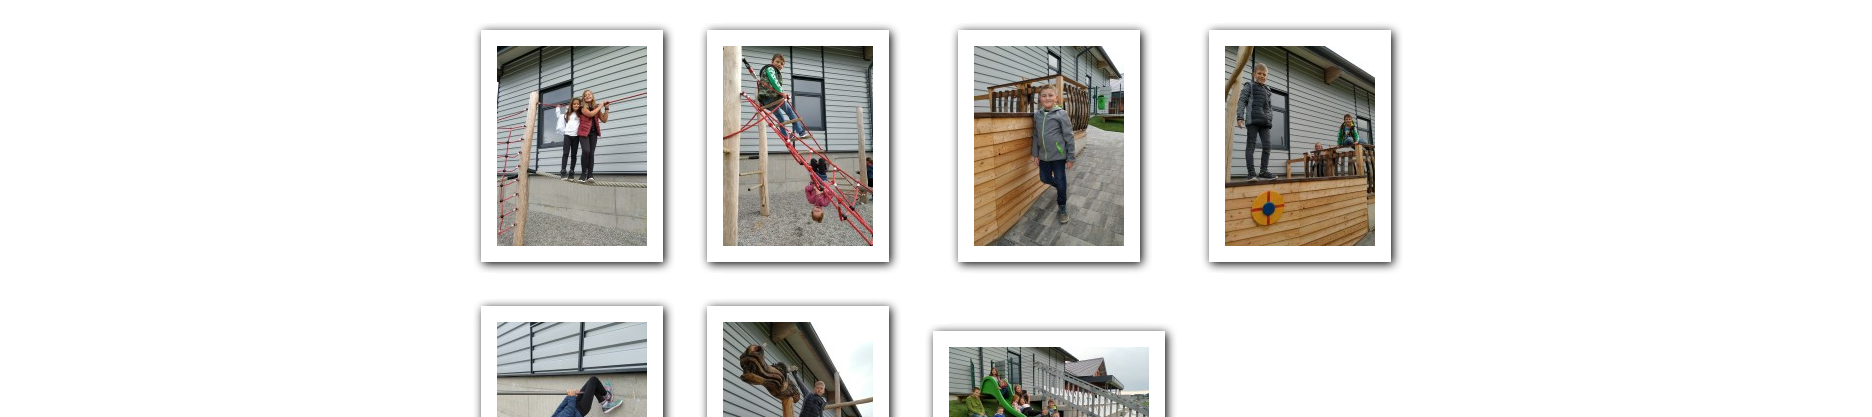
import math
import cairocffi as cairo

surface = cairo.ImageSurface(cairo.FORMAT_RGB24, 1872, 417)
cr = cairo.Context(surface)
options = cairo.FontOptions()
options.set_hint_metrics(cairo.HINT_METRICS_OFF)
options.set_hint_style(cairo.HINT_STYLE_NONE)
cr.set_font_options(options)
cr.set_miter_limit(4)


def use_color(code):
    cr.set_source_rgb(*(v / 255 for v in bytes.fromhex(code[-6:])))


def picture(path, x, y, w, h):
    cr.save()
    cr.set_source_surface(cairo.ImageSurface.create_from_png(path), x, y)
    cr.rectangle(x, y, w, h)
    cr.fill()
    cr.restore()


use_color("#ffffff")
cr.paint()
picture("img1.png", 473, 23, 24, 23)
picture("img2.png", 497, 22, 150, 8)
picture("img3.png", 647, 22, 28, 24)
picture("img4.png", 473, 46, 8, 200)
picture("img5.png", 497, 46, 150, 200)
picture("img6.png", 663, 46, 12, 200)
picture("img7.png", 473, 246, 24, 27)
picture("img8.png", 497, 262, 150, 12)
picture("img9.png", 647, 246, 28, 28)
picture("img1.png", 699, 23, 24, 23)
picture("img2.png", 723, 22, 150, 8)
picture("img3.png", 873, 22, 28, 24)
picture("img4.png", 699, 46, 8, 200)
picture("img10.png", 723, 46, 150, 200)
picture("img6.png", 889, 46, 12, 200)
picture("img7.png", 699, 246, 24, 27)
picture("img8.png", 723, 262, 150, 12)
picture("img9.png", 873, 246, 28, 28)
picture("img1.png", 950, 23, 24, 23)
picture("img2.png", 974, 22, 150, 8)
picture("img3.png", 1124, 22, 28, 24)
picture("img4.png", 950, 46, 8, 200)
picture("img11.png", 974, 46, 150, 200)
picture("img6.png", 1140, 46, 12, 200)
picture("img7.png", 950, 246, 24, 27)
picture("img8.png", 974, 262, 150, 12)
picture("img9.png", 1124, 246, 28, 28)
picture("img1.png", 1201, 23, 24, 23)
picture("img2.png", 1225, 22, 150, 8)
picture("img3.png", 1375, 22, 28, 24)
picture("img4.png", 1201, 46, 8, 200)
picture("img12.png", 1225, 46, 150, 200)
picture("img6.png", 1391, 46, 12, 200)
picture("img7.png", 1201, 246, 24, 27)
picture("img8.png", 1225, 262, 150, 12)
picture("img9.png", 1375, 246, 28, 28)
picture("img1.png", 473, 299, 24, 23)
picture("img2.png", 497, 298, 150, 8)
picture("img3.png", 647, 298, 28, 24)
picture("img13.png", 473, 322, 8, 95)
picture("img14.png", 497, 322, 150, 95)
picture("img15.png", 663, 322, 12, 95)
picture("img1.png", 699, 299, 24, 23)
picture("img2.png", 723, 298, 150, 8)
picture("img3.png", 873, 298, 28, 24)
picture("img13.png", 699, 322, 8, 95)
picture("img16.png", 723, 322, 150, 95)
picture("img15.png", 889, 322, 12, 95)
picture("img1.png", 925, 324, 24, 23)
picture("img17.png", 949, 323, 200, 8)
picture("img3.png", 1149, 323, 28, 24)
picture("img18.png", 925, 347, 8, 70)
picture("img19.png", 949, 347, 200, 70)
picture("img20.png", 1165, 347, 12, 70)
surface.write_to_png("result.png")
